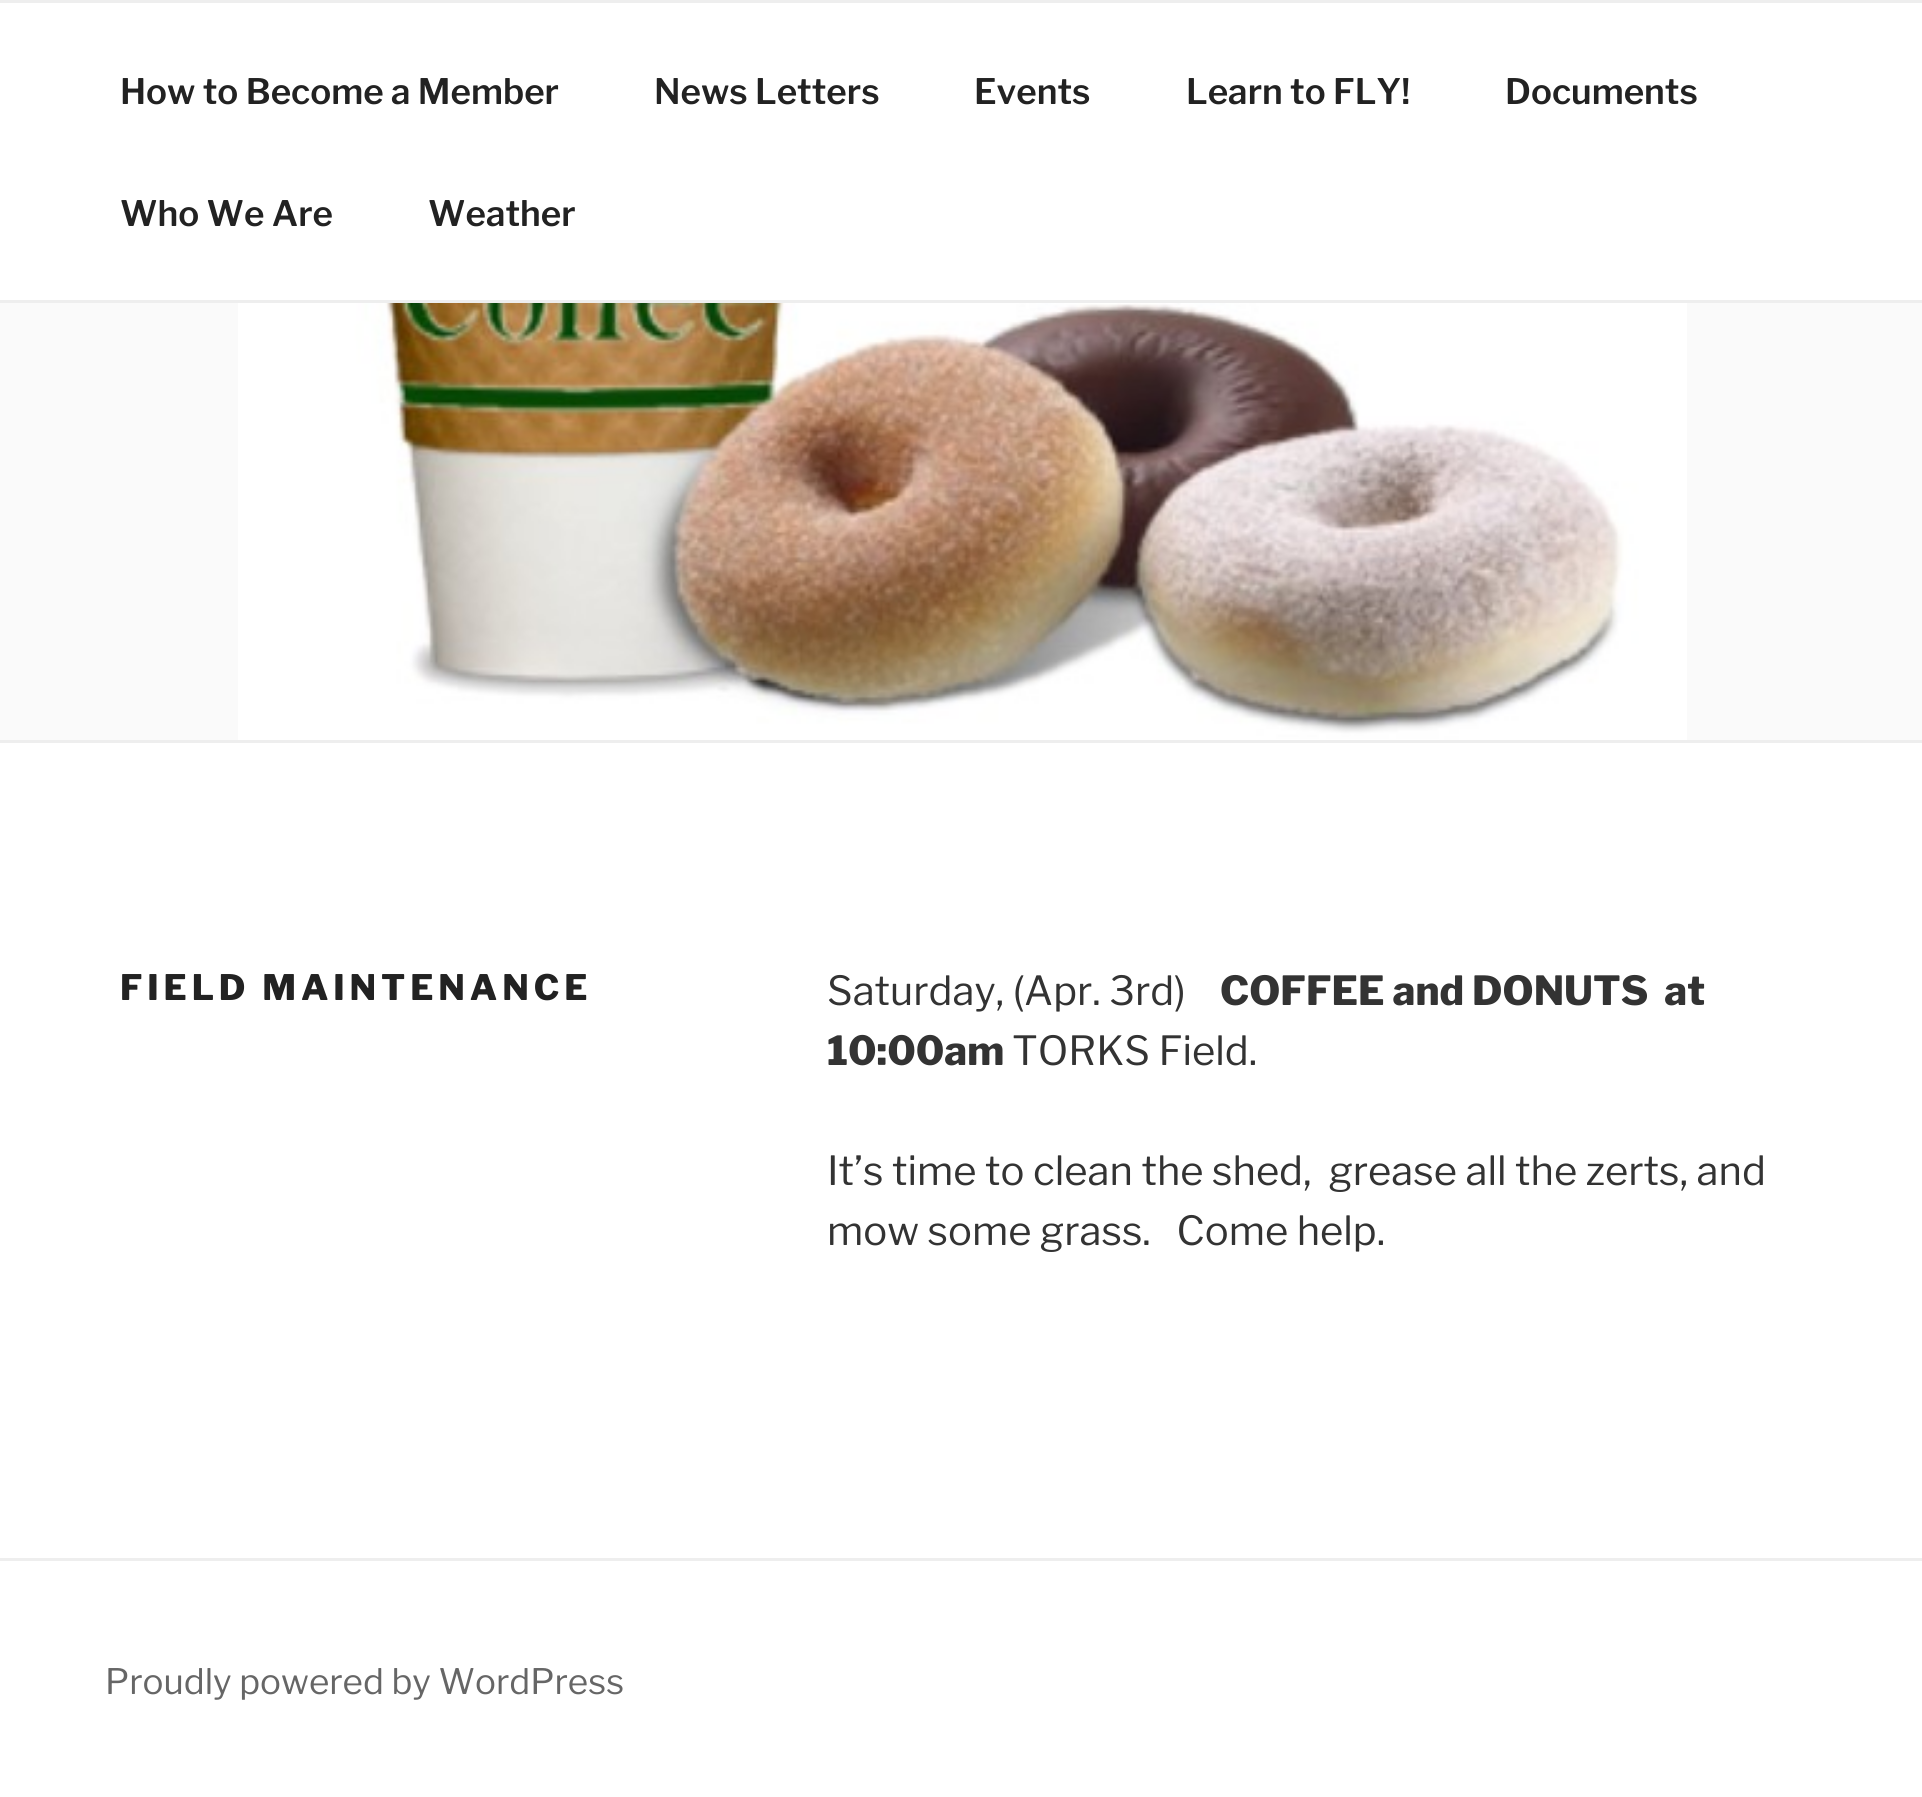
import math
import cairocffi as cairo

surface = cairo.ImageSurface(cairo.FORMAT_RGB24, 1922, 1797)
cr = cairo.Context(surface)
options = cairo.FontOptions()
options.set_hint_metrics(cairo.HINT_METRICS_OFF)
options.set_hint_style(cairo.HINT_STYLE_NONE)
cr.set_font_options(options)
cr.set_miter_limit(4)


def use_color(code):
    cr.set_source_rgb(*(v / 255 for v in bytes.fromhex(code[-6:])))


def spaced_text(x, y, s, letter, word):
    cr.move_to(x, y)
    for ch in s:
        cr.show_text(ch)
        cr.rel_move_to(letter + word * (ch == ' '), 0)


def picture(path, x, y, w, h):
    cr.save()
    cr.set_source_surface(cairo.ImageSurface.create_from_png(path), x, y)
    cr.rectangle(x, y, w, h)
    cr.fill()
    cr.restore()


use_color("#ffffff")
cr.paint()
use_color("#eeeeee")
cr.rectangle(0, 0, 1922, 3)
cr.fill()
cr.rectangle(0, 300, 1922, 3)
cr.fill()
cr.select_font_face("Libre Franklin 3 Thin")
cr.set_font_size(35)
use_color("#222222")
cr.move_to(120, 104)
cr.show_text("How to Become a Member")
cr.move_to(654, 104)
cr.show_text("News Letters")
cr.move_to(974, 104)
cr.show_text("Events")
cr.move_to(1186, 104)
cr.show_text("Learn to FLY!")
cr.move_to(1505, 104)
cr.show_text("Documents")
cr.move_to(120, 226)
cr.show_text("Who We Are")
cr.move_to(428, 226)
cr.show_text("Weather")
use_color("#fafafa")
cr.rectangle(0, 303, 1922, 437)
cr.fill()
use_color("#eeeeee")
cr.rectangle(0, 740, 1922, 3)
cr.fill()
picture("img1.png", 238, 303, 1449, 437)
cr.select_font_face("Libre Franklin Thin")
use_color("#222222")
spaced_text(120, 1000, "FIELD MAINTENANCE", 4.9, 0)
cr.select_font_face("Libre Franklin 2 Thin")
cr.set_font_size(40)
use_color("#333333")
cr.move_to(827, 1005)
cr.show_text("Saturday, (Apr. 3rd)")
cr.select_font_face("Libre Franklin Thin")
cr.move_to(1220, 1005)
cr.show_text("COFFEE and DONUTS  at")
cr.move_to(827, 1065)
cr.show_text("10:00am")
cr.select_font_face("Libre Franklin 2 Thin")
cr.move_to(1012, 1065)
cr.show_text("TORKS Field.")
cr.move_to(827, 1185)
cr.show_text("It’s time to clean the shed,  grease all the zerts, and")
cr.move_to(827, 1245)
cr.show_text("mow some grass.   Come help.")
use_color("#eeeeee")
cr.rectangle(0, 1558, 1922, 3)
cr.fill()
cr.set_font_size(35)
use_color("#666666")
cr.move_to(105, 1694)
cr.show_text("Proudly powered by WordPress")
surface.write_to_png("result.png")
